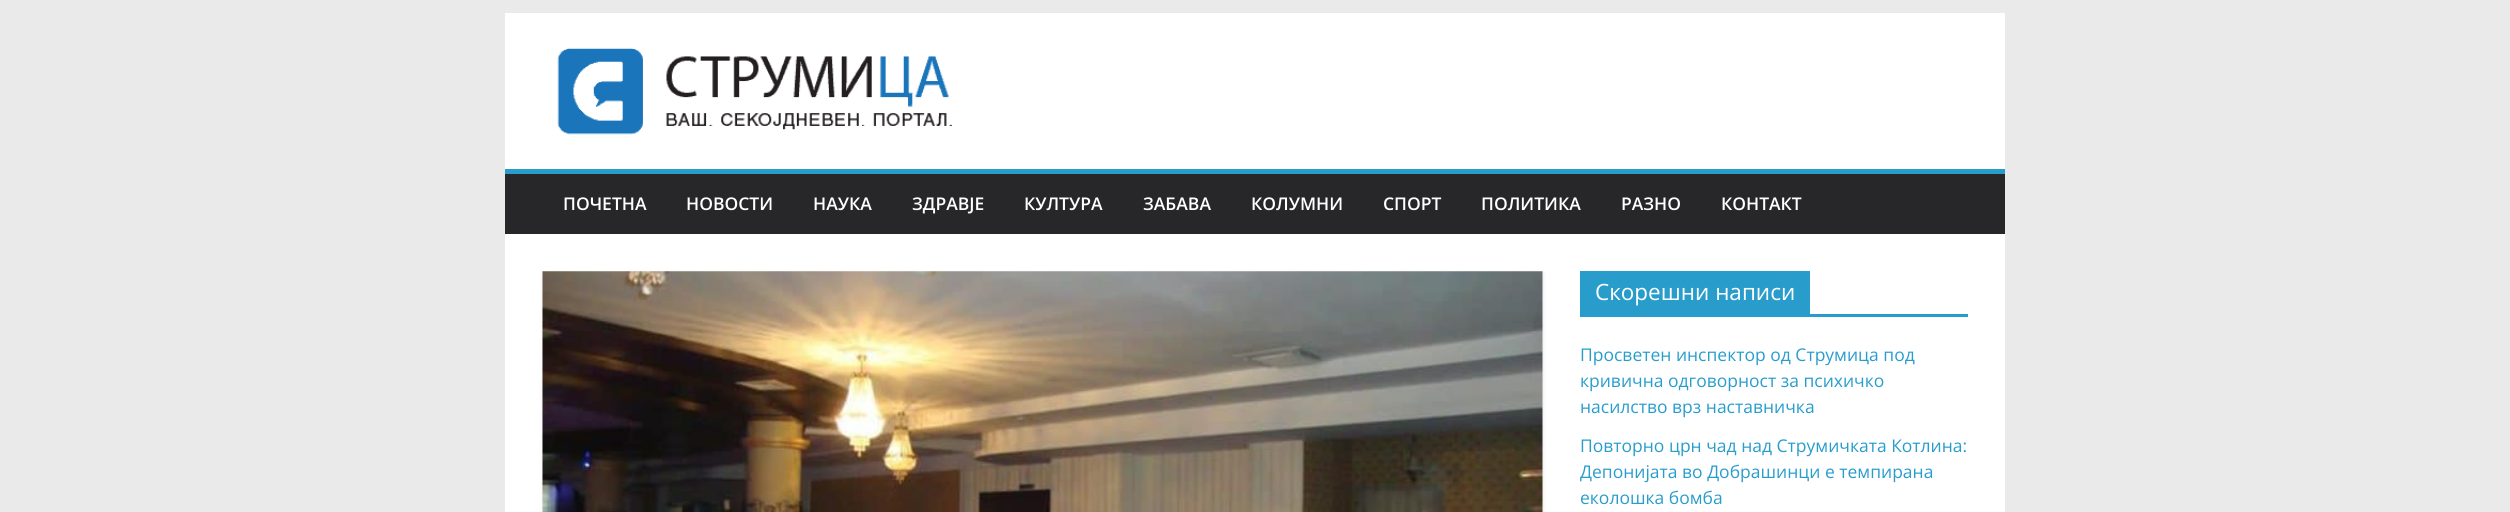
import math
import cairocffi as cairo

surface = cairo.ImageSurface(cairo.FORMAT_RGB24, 2510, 512)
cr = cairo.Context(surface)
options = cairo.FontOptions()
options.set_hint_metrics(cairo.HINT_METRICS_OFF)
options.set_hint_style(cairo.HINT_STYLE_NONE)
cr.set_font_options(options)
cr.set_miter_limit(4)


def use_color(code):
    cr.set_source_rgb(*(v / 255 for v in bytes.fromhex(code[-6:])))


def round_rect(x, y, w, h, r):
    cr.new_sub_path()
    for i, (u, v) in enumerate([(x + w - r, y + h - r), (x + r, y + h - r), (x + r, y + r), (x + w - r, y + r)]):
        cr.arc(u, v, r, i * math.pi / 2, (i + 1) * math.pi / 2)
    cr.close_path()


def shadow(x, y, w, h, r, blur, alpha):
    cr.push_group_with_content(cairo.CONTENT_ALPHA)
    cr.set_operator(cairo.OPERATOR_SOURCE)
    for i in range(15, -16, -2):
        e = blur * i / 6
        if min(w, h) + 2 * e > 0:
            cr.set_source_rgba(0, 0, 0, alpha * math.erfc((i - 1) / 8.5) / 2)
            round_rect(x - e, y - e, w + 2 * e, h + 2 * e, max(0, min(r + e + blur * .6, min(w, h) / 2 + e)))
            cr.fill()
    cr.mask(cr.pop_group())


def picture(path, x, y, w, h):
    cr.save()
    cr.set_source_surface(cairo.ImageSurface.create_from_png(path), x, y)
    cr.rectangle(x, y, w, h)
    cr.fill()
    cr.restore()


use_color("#eaeaea")
cr.paint()
use_color("#ffffff")
cr.rectangle(505, 13, 1500, 156)
cr.fill()
picture("img1.png", 557, 48, 395, 87)
use_color("#27272a")
cr.rectangle(505, 174, 1500, 60)
cr.fill()
use_color("#289dcc")
cr.rectangle(505, 169, 1500, 5)
cr.fill()
cr.select_font_face("Open Sans SemiBold")
cr.set_font_size(17.5)
use_color("#ffffff")
cr.move_to(563, 210)
cr.show_text("ПОЧЕТНА")
cr.move_to(686, 210)
cr.show_text("НОВОСТИ")
cr.move_to(813, 210)
cr.show_text("НАУКА")
cr.move_to(912, 210)
cr.show_text("ЗДРАВЈЕ")
cr.move_to(1024, 210)
cr.show_text("КУЛТУРА")
cr.move_to(1143, 210)
cr.show_text("ЗАБАВА")
cr.move_to(1251, 210)
cr.show_text("КОЛУМНИ")
cr.move_to(1383, 210)
cr.show_text("СПОРТ")
cr.move_to(1481, 210)
cr.show_text("ПОЛИТИКА")
cr.move_to(1621, 210)
cr.show_text("РАЗНО")
cr.move_to(1721, 210)
cr.show_text("КОНТАКТ")
cr.rectangle(505, 234, 1500, 278)
cr.fill()
use_color("#000000")
shadow(543, 273, 1000, 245, 0, 2, 0.1)
picture("img2.png", 542, 271, 1001, 241)
use_color("#289dcc")
cr.rectangle(1580, 314, 388, 3)
cr.fill()
cr.rectangle(1580, 271, 230, 43)
cr.fill()
cr.select_font_face("Open Sans")
cr.set_font_size(22.5)
use_color("#ffffff")
cr.move_to(1595, 300)
cr.show_text("Скорешни написи")
cr.set_font_size(17.5)
use_color("#289dcc")
cr.move_to(1580, 361)
cr.show_text("Просветен инспектор од Струмица под")
cr.move_to(1580, 387)
cr.show_text("кривична одговорност за психичко")
cr.move_to(1580, 413)
cr.show_text("насилство врз наставничка")
cr.move_to(1580, 452)
cr.show_text("Повторно црн чад над Струмичката Котлина:")
cr.move_to(1580, 478)
cr.show_text("Депонијата во Добрашинци е темпирана")
cr.move_to(1580, 504)
cr.show_text("еколошка бомба")
surface.write_to_png("result.png")
